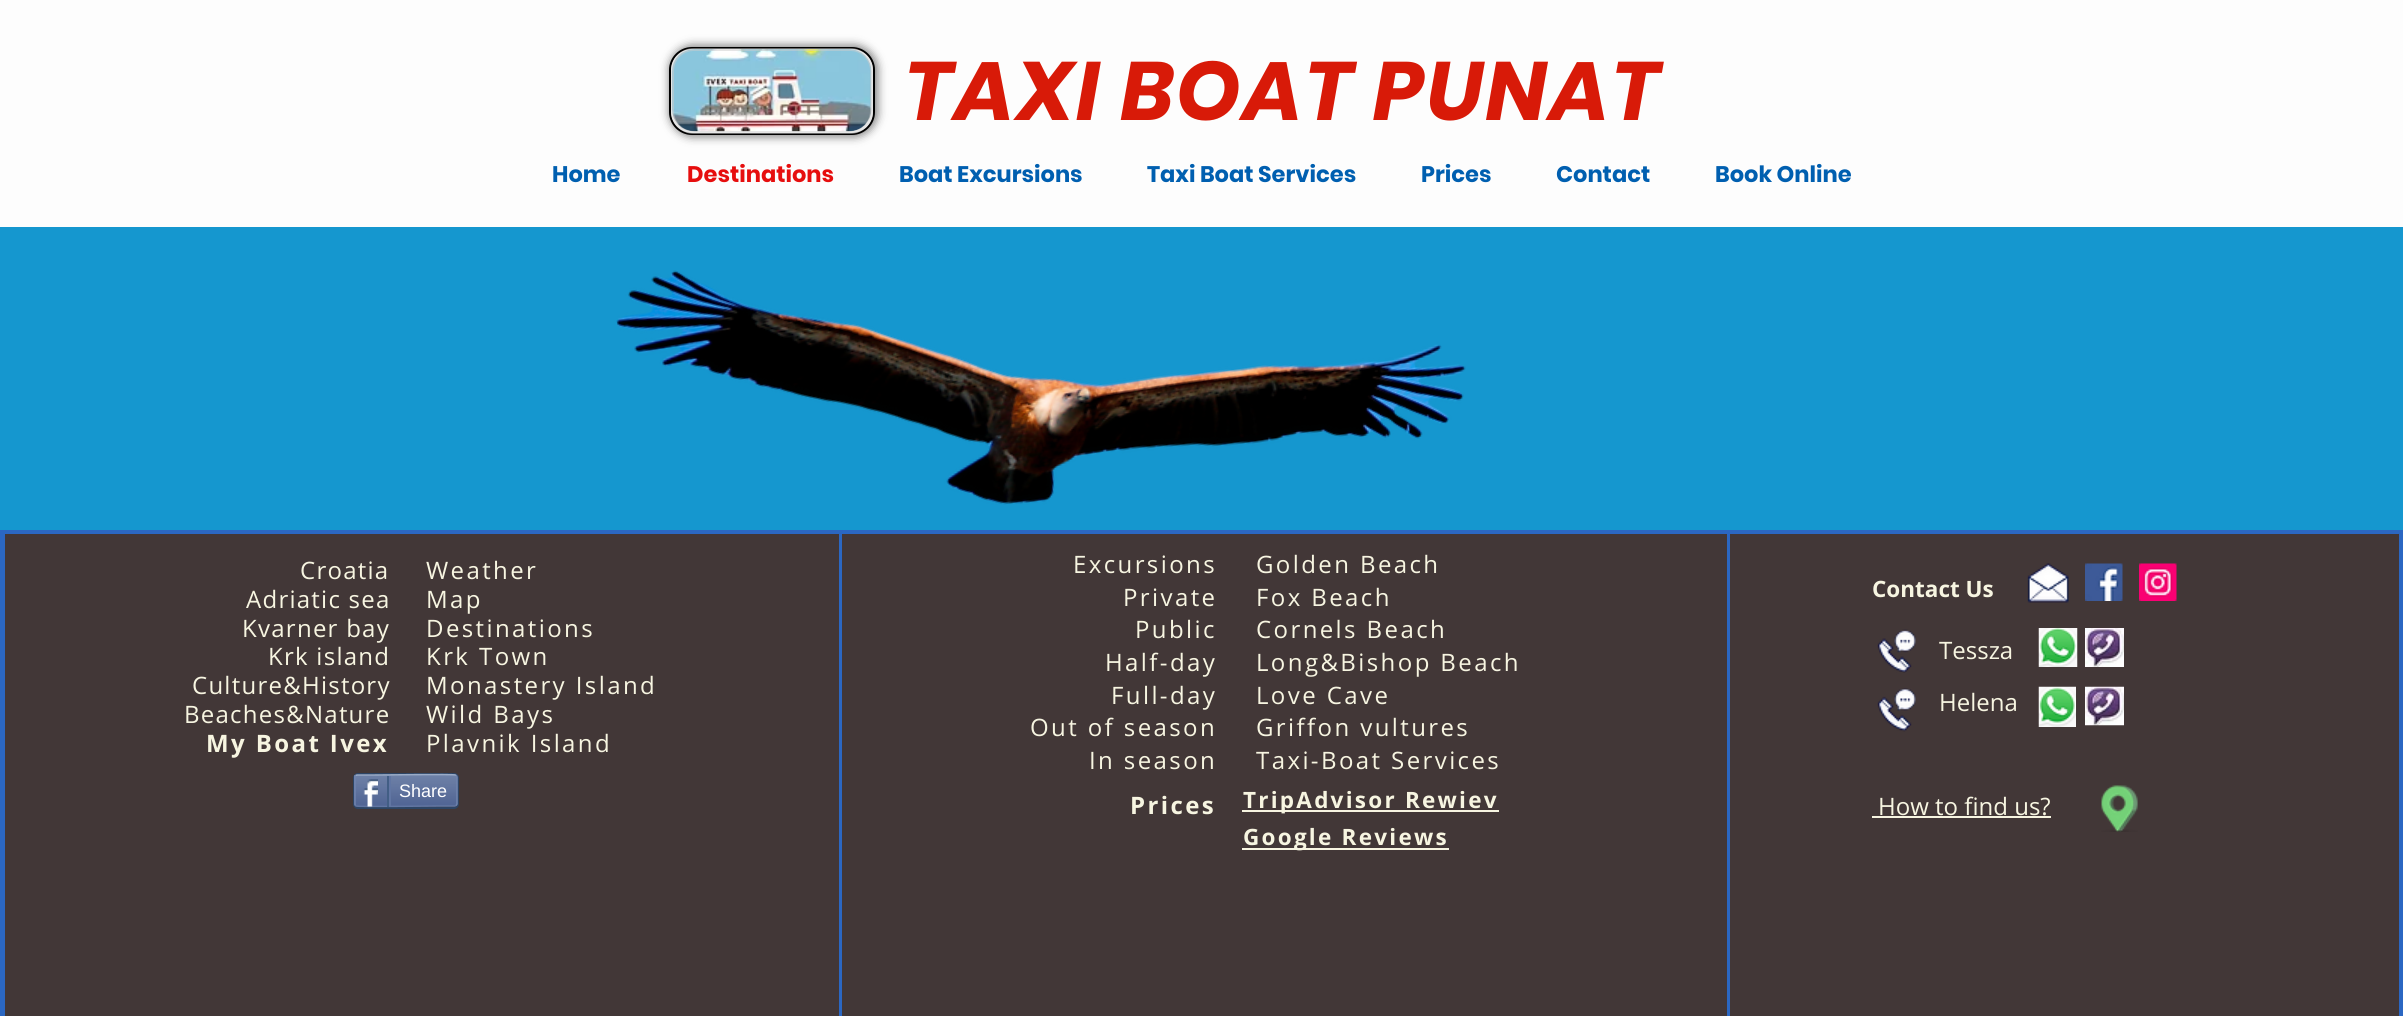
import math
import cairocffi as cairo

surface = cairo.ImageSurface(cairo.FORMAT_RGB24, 2403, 1016)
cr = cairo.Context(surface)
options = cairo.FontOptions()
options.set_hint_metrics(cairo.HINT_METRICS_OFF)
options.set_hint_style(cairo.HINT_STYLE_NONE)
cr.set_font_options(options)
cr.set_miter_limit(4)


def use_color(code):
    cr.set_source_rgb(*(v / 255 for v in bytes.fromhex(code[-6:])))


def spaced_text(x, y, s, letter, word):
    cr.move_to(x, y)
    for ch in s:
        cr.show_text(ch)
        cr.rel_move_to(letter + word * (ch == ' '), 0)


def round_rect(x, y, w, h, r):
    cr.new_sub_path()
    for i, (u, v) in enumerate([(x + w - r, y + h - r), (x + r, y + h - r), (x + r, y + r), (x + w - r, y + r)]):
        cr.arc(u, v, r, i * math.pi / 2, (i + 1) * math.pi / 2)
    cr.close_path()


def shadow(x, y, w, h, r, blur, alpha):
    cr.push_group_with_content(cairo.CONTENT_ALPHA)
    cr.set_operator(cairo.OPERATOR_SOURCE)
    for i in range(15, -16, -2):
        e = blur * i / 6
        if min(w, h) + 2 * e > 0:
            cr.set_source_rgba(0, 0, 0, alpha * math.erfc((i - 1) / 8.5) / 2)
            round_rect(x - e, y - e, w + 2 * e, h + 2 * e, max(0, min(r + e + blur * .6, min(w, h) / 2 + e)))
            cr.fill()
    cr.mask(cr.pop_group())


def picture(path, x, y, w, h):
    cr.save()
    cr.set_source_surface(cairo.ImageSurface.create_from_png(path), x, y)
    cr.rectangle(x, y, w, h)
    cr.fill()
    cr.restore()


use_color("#1597cf")
cr.paint()
use_color("#fdfdfd")
cr.rectangle(0, 0, 2403, 227)
cr.fill()
use_color("#000000")
shadow(669, 45, 209, 92, 24, 4.5, 0.49)
use_color("#ffffff")
round_rect(670, 48, 204, 86, 22)
cr.fill_preserve()
use_color("#000000")
cr.stroke()
picture("img1.png", 672, 49, 200, 83)
round_rect(672.5, 49.5, 199, 83, 21.5)
cr.set_source_rgba(0.8, 0.8, 0.8, 0.51)
cr.set_line_width(3)
cr.stroke()
cr.select_font_face("Poppins", cairo.FONT_SLANT_ITALIC, cairo.FONT_WEIGHT_BOLD)
cr.set_font_size(82.5)
use_color("#d81a08")
spaced_text(905, 120, "TAXI BOAT PUNAT", 2, 0)
cr.select_font_face("Poppins", cairo.FONT_SLANT_NORMAL, cairo.FONT_WEIGHT_BOLD)
cr.set_font_size(22.5)
use_color("#005fb0")
cr.move_to(552, 182)
cr.show_text("Home")
use_color("#e60e0e")
cr.move_to(687, 182)
cr.show_text("Destinations")
use_color("#005fb0")
cr.move_to(899, 182)
cr.show_text("Boat Excursions")
cr.move_to(1147, 182)
cr.show_text("Taxi Boat Services")
cr.move_to(1421, 182)
cr.show_text("Prices")
cr.move_to(1556, 182)
cr.show_text("Contact")
cr.move_to(1715, 182)
cr.show_text("Book Online")
picture("img2.png", 616, 270, 850, 235)
use_color("#2b67c2")
cr.rectangle(0, 530, 2403, 486)
cr.fill()
use_color("#423737")
cr.rectangle(5, 534, 834, 482)
cr.fill()
cr.select_font_face("Open Sans")
cr.set_font_size(24)
use_color("#f7f5e1")
spaced_text(300, 579, "Croatia", 1.25, 0)
spaced_text(246, 608, "Adriatic sea", 1.25, 0)
spaced_text(242, 637, "Kvarner bay", 1.25, 0)
spaced_text(268, 665, "Krk island", 1.25, 0)
spaced_text(192, 694, "Culture&History", 1.25, 0)
spaced_text(184, 723, "Beaches&Nature", 1.25, 0)
cr.select_font_face("Open Sans", cairo.FONT_SLANT_NORMAL, cairo.FONT_WEIGHT_BOLD)
spaced_text(206, 752, "My Boat Ivex", 2.4, 0)
cr.select_font_face("Open Sans")
spaced_text(426, 579, "Weather", 2.4, 0)
spaced_text(426, 608, "Map", 2.4, 0)
spaced_text(426, 637, "Destinations", 2.4, 0)
spaced_text(426, 665, "Krk Town", 2.4, 0)
spaced_text(426, 694, "Monastery Island", 2.4, 0)
spaced_text(426, 723, "Wild Bays", 2.4, 0)
spaced_text(426, 752, "Plavnik Island", 2.4, 0)
round_rect(354, 774, 104, 34, 4)
use_color("#2d4565")
cr.set_line_width(2)
cr.stroke()
picture("img3.png", 354, 775, 104, 32)
cr.new_path()
cr.move_to(355.5, 775.5)
cr.line_to(357, 775)
cr.line_to(373, 775)
cr.curve_to(381.5, 775, 454, 774, 455.5, 775)
cr.line_to(456, 775.5)
use_color("#9aabc6")
cr.set_line_width(1.5)
cr.stroke()
cr.new_path()
cr.move_to(456, 775.5)
cr.curve_to(456.5, 776, 457, 776.5, 457, 777)
cr.line_to(457, 804)
cr.curve_to(457, 804.5, 456.5, 805, 456, 805.5)
use_color("#6f83ad")
cr.stroke()
cr.new_path()
cr.move_to(456, 805.5)
cr.line_to(454.5, 806)
cr.line_to(438, 806)
cr.curve_to(430, 806, 357.5, 807, 356, 806)
cr.line_to(355.5, 805.5)
use_color("#6176a3")
cr.stroke()
cr.new_path()
cr.move_to(355.5, 805.5)
cr.curve_to(355, 805, 355, 804.5, 355, 804)
cr.line_to(355, 777)
cr.curve_to(355, 776.5, 355, 776, 355.5, 775.5)
use_color("#6f83ad")
cr.stroke()
picture("img4.png", 363, 779, 15, 28)
use_color("#425e85")
cr.rectangle(387, 776, 2, 31)
cr.fill()
cr.select_font_face("Liberation Sans")
cr.set_font_size(18)
use_color("#ffffff")
cr.move_to(399, 797)
cr.show_text("Share")
use_color("#6176a3")
cr.rectangle(389, 776, 2, 30)
cr.fill()
use_color("#423737")
cr.rectangle(842, 534, 885, 482)
cr.fill()
cr.select_font_face("Open Sans")
cr.set_font_size(24)
use_color("#f7f5e1")
spaced_text(1073, 573, "Excursions", 2.4, 0)
spaced_text(1123, 606, "Private", 2.4, 0)
spaced_text(1135, 638, "Public", 2.4, 0)
spaced_text(1105, 671, "Half-day", 2.4, 0)
spaced_text(1111, 704, "Full-day", 2.4, 0)
spaced_text(1030, 736, "Out of season", 2.4, 0)
spaced_text(1089, 769, "In season", 2.4, 0)
spaced_text(1256, 573, "Golden Beach", 2.4, 0)
spaced_text(1256, 606, "Fox Beach", 2.4, 0)
spaced_text(1256, 638, "Cornels Beach", 2.4, 0)
spaced_text(1256, 671, "Long&Bishop Beach", 2.4, 0)
spaced_text(1256, 704, "Love Cave", 2.4, 0)
spaced_text(1256, 736, "Griffon vultures", 2.4, 0)
spaced_text(1256, 769, "Taxi-Boat Services", 2.4, 0)
cr.select_font_face("Open Sans", cairo.FONT_SLANT_NORMAL, cairo.FONT_WEIGHT_BOLD)
spaced_text(1130, 814, "Prices", 2.4, 0)
cr.rectangle(1242, 810, 257, 2)
cr.fill()
cr.set_font_size(22.5)
spaced_text(1243, 808, "TripAdvisor Rewiev", 2.25, 0)
cr.rectangle(1242, 848, 207, 2)
cr.fill()
spaced_text(1243, 845, "Google Reviews", 2.25, 0)
use_color("#423737")
cr.rectangle(1730, 534, 669, 482)
cr.fill()
use_color("#f7f5e1")
cr.move_to(1872, 597)
cr.show_text("Contact Us")
picture("img5.png", 2027, 563, 42, 40)
picture("img6.png", 2085, 563, 38, 38)
picture("img7.png", 2139, 563, 38, 38)
picture("img8.png", 1877, 629, 39, 44)
cr.select_font_face("Open Sans")
cr.set_font_size(24)
cr.move_to(1939, 659)
cr.show_text("Tessza")
cr.move_to(1939, 711)
cr.show_text("Helena")
picture("img9.png", 2038, 628, 40, 39)
picture("img10.png", 2085, 628, 39, 39)
picture("img11.png", 1877, 688, 39, 44)
picture("img12.png", 2038, 686, 38, 41)
picture("img13.png", 2085, 686, 39, 40)
cr.move_to(1878, 815)
cr.show_text("How to find us?")
cr.rectangle(1872, 816, 179, 2)
cr.fill()
picture("img14.png", 2101, 785, 37, 47)
surface.write_to_png("result.png")
